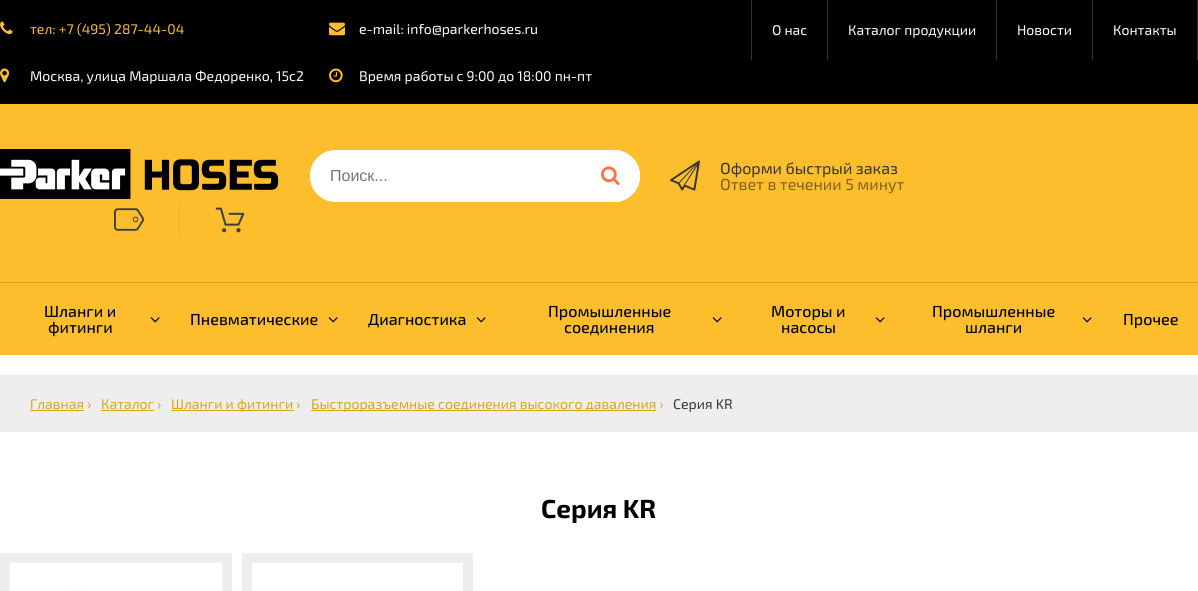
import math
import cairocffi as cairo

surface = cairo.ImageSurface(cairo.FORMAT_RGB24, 1198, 591)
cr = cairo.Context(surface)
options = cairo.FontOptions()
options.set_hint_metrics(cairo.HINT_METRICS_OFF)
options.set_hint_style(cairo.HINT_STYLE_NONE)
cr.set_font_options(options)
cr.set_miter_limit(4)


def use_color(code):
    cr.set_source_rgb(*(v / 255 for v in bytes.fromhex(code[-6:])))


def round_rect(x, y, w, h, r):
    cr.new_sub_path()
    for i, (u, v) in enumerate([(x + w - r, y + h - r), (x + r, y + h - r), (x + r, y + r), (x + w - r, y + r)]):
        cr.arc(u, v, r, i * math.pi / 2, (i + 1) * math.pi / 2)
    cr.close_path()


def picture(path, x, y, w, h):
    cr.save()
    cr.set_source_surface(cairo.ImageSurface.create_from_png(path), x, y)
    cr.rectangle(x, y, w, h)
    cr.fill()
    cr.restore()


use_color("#ffffff")
cr.paint()
use_color("#000000")
cr.rectangle(0, 0, 1198, 104)
cr.fill()
picture("img1.png", 0, 21, 13, 14)
cr.select_font_face("Exo 2")
cr.set_font_size(14)
use_color("#fcbe2d")
cr.move_to(30, 34)
cr.show_text("тел: +7 (495) 287-44-04")
picture("img2.png", 329, 22, 16, 14)
use_color("#ffffff")
cr.move_to(359, 34)
cr.show_text("e-mail: info@parkerhoses.ru")
picture("img3.png", 0, 68, 10, 15)
cr.move_to(30, 81)
cr.show_text("Москва, улица Маршала Федоренко, 15с2")
picture("img4.png", 329, 68, 14, 15)
cr.move_to(359, 81)
cr.show_text("Время работы с 9:00 до 18:00 пн-пт")
use_color("#333333")
cr.rectangle(751, 0, 1, 60)
cr.fill()
use_color("#ffffff")
cr.move_to(772, 35)
cr.show_text("О нас")
use_color("#333333")
cr.rectangle(827, 0, 1, 60)
cr.fill()
use_color("#ffffff")
cr.move_to(848, 35)
cr.show_text("Каталог продукции")
use_color("#333333")
cr.rectangle(996, 0, 1, 60)
cr.fill()
use_color("#ffffff")
cr.move_to(1017, 35)
cr.show_text("Новости")
use_color("#333333")
cr.rectangle(1197, 0, 1, 60)
cr.fill()
cr.rectangle(1092, 0, 1, 60)
cr.fill()
use_color("#ffffff")
cr.move_to(1113, 35)
cr.show_text("Контакты")
use_color("#fcbe2d")
cr.rectangle(0, 104, 1198, 251)
cr.fill()
picture("img5.png", 0, 149, 279, 50)
use_color("#ffffff")
round_rect(310, 150, 330, 52, 26)
cr.fill()
cr.save()
round_rect(310, 150, 330, 52, 26)
cr.clip()
cr.rectangle(310, 151, 286, 50)
cr.fill()
cr.restore()
cr.select_font_face("Liberation Sans")
cr.set_font_size(16)
use_color("#757575")
cr.move_to(330, 181)
cr.show_text("Поиск...")
use_color("#ffffff")
cr.new_path()
cr.move_to(596, 150)
cr.line_to(614, 150)
cr.curve_to(628.5, 150, 640, 161.5, 640, 176)
cr.curve_to(640, 190.5, 628.5, 202, 614, 202)
cr.line_to(596, 202)
cr.close_path()
cr.fill()
picture("img6.png", 601, 166, 19, 19)
picture("img7.png", 670, 160, 30, 31)
cr.select_font_face("Exo 2")
use_color("#333333")
cr.move_to(720, 174)
cr.show_text("Оформи быстрый заказ")
use_color("#7f6115")
cr.move_to(720, 190)
cr.show_text("Ответ в течении 5 минут")
use_color("#edb321")
cr.rectangle(179, 202, 1, 35)
cr.fill()
picture("img8.png", 114, 208, 30, 23)
picture("img9.png", 215, 207, 30, 26)
use_color("#dca314")
cr.rectangle(0, 282, 1198, 1)
cr.fill()
cr.select_font_face("Exo 2 Medium")
use_color("#000000")
cr.move_to(44, 317)
cr.show_text("Шланги и")
cr.move_to(48, 333)
cr.show_text("фитинги")
picture("img10.png", 150, 317, 10, 6)
cr.move_to(190, 325)
cr.show_text("Пневматические")
picture("img10.png", 328, 317, 10, 6)
cr.move_to(368, 325)
cr.show_text("Диагностика")
picture("img10.png", 476, 317, 10, 6)
cr.move_to(548, 317)
cr.show_text("Промышленные")
cr.move_to(564, 333)
cr.show_text("соединения")
picture("img10.png", 712, 317, 10, 6)
cr.move_to(771, 317)
cr.show_text("Моторы и")
cr.move_to(781, 333)
cr.show_text("насосы")
picture("img10.png", 875, 317, 10, 6)
cr.move_to(932, 317)
cr.show_text("Промышленные")
cr.move_to(965, 333)
cr.show_text("шланги")
picture("img10.png", 1082, 317, 10, 6)
cr.move_to(1123, 325)
cr.show_text("Прочее")
use_color("#eeeeee")
cr.rectangle(0, 375, 1198, 57)
cr.fill()
cr.select_font_face("Exo 2")
cr.set_font_size(14)
use_color("#dca314")
cr.move_to(30, 409)
cr.show_text("Главная ›")
cr.rectangle(30, 410, 54, 1)
cr.fill()
cr.move_to(101, 409)
cr.show_text("Каталог ›")
cr.rectangle(101, 410, 53, 1)
cr.fill()
cr.rectangle(171, 410, 123, 1)
cr.fill()
cr.move_to(171, 409)
cr.show_text("Шланги и фитинги ›")
cr.rectangle(311, 410, 345, 1)
cr.fill()
cr.move_to(311, 409)
cr.show_text("Быстроразъемные соединения высокого даваления ›")
use_color("#333333")
cr.move_to(673, 409)
cr.show_text("Серия KR")
cr.select_font_face("Exo 2", cairo.FONT_SLANT_NORMAL, cairo.FONT_WEIGHT_BOLD)
cr.set_font_size(26)
use_color("#000000")
cr.move_to(541, 518)
cr.show_text("Серия KR")
use_color("#eeeeee")
cr.rectangle(0, 553, 232, 38)
cr.fill()
picture("img11.png", 10, 563, 212, 28)
cr.rectangle(242, 553, 231, 38)
cr.fill()
use_color("#ffffff")
cr.rectangle(252, 563, 211, 28)
cr.fill()
surface.write_to_png("result.png")
